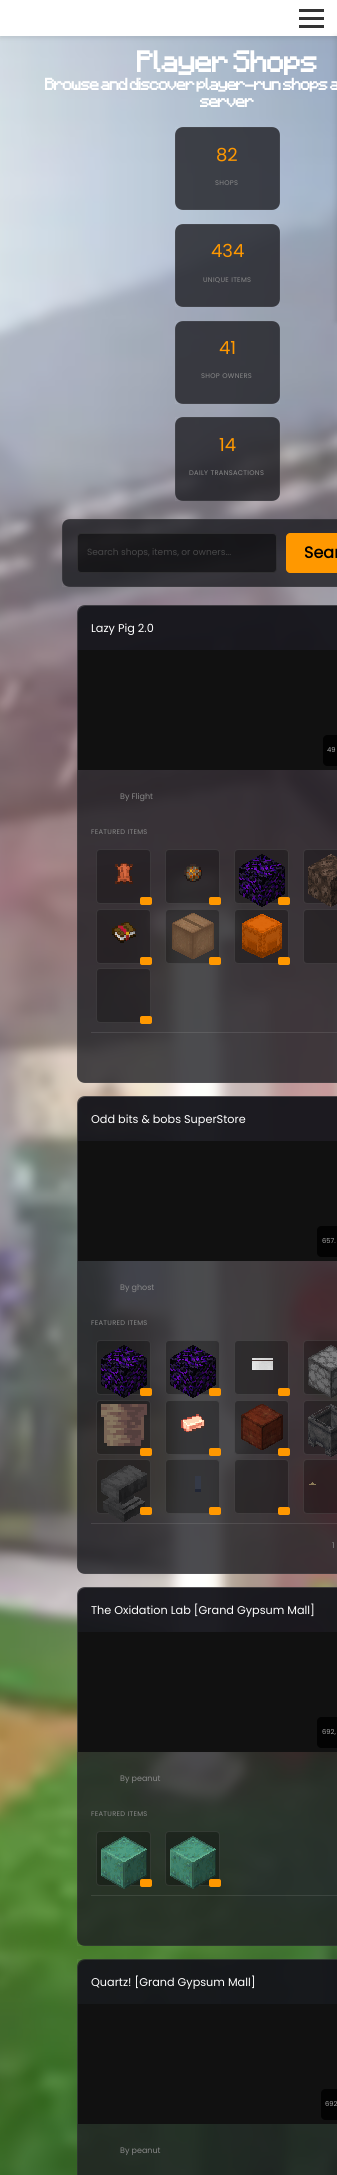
import math
import cairocffi as cairo

surface = cairo.ImageSurface(cairo.FORMAT_RGB24, 337, 2175)
cr = cairo.Context(surface)
options = cairo.FontOptions()
options.set_hint_metrics(cairo.HINT_METRICS_OFF)
options.set_hint_style(cairo.HINT_STYLE_NONE)
cr.set_font_options(options)
cr.set_miter_limit(4)


def use_color(code):
    cr.set_source_rgb(*(v / 255 for v in bytes.fromhex(code[-6:])))


def spaced_text(x, y, s, letter, word):
    cr.move_to(x, y)
    for ch in s:
        cr.show_text(ch)
        cr.rel_move_to(letter + word * (ch == ' '), 0)


def round_rect(x, y, w, h, r):
    cr.new_sub_path()
    for i, (u, v) in enumerate([(x + w - r, y + h - r), (x + r, y + h - r), (x + r, y + r), (x + w - r, y + r)]):
        cr.arc(u, v, r, i * math.pi / 2, (i + 1) * math.pi / 2)
    cr.close_path()


def shadow(x, y, w, h, r, blur, alpha):
    cr.push_group_with_content(cairo.CONTENT_ALPHA)
    cr.set_operator(cairo.OPERATOR_SOURCE)
    for i in range(15, -16, -2):
        e = blur * i / 6
        if min(w, h) + 2 * e > 0:
            cr.set_source_rgba(0, 0, 0, alpha * math.erfc((i - 1) / 8.5) / 2)
            round_rect(x - e, y - e, w + 2 * e, h + 2 * e, max(0, min(r + e + blur * .6, min(w, h) / 2 + e)))
            cr.fill()
    cr.mask(cr.pop_group())


def picture(path, x, y, w, h):
    cr.save()
    cr.set_source_surface(cairo.ImageSurface.create_from_png(path), x, y)
    cr.rectangle(x, y, w, h)
    cr.fill()
    cr.restore()


use_color("#ffffff")
cr.paint()
picture("img1.png", 0, 36, 337, 2139)
use_color("#000000")
shadow(0, 2, 337, 36, 0, 2.5, 0.1)
use_color("#ffffff")
cr.rectangle(0, 0, 337, 36)
cr.fill()
use_color("#333333")
cr.rectangle(299, 9, 25, 3)
cr.fill()
cr.rectangle(299, 17, 25, 3)
cr.fill()
cr.rectangle(299, 25, 25, 3)
cr.fill()
use_color("#000000")
shadow(335, 36, 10, 286, 0, 2.5, 0.1)
cr.select_font_face("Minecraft", cairo.FONT_SLANT_NORMAL, cairo.FONT_WEIGHT_BOLD)
cr.set_font_size(24)
use_color("#ffffff")
spaced_text(137, 72, "Player Shops", -1.2, 0)
cr.set_font_size(13.5)
spaced_text(45, 90, "Browse and discover player-run shops a", -1.2, 0)
spaced_text(200, 107, "server", -1.2, 0)
cr.set_source_rgba(0.118, 0.118, 0.137, 0.8)
round_rect(175, 127, 105, 83, 8)
cr.fill()
cr.rectangle(175.5, 127.5, 104, 82)
cr.set_source_rgba(1, 1, 1, 0.05)
cr.set_line_width(1)
cr.stroke()
cr.select_font_face("Poppins")
cr.set_font_size(18)
use_color("#ff9800")
cr.move_to(216, 161)
cr.show_text("82")
cr.set_font_size(6.75)
use_color("#888888")
spaced_text(215, 185, "SHOPS", 0.3, 0)
cr.set_source_rgba(0.118, 0.118, 0.137, 0.8)
round_rect(175, 224, 105, 83, 8)
cr.fill()
cr.rectangle(175.5, 224.5, 104, 82)
cr.set_source_rgba(1, 1, 1, 0.05)
cr.stroke()
cr.set_font_size(18)
use_color("#ff9800")
cr.move_to(211, 257)
cr.show_text("434")
cr.set_font_size(6.75)
use_color("#888888")
spaced_text(203, 282, "UNIQUE ITEMS", 0.3, 0)
cr.set_source_rgba(0.118, 0.118, 0.137, 0.8)
round_rect(175, 321, 105, 83, 8)
cr.fill()
cr.rectangle(175.5, 321.5, 104, 82)
cr.set_source_rgba(1, 1, 1, 0.05)
cr.stroke()
cr.set_font_size(18)
use_color("#ff9800")
cr.move_to(219, 354)
cr.show_text("41")
cr.set_font_size(6.75)
use_color("#888888")
spaced_text(201, 378, "SHOP OWNERS", 0.3, 0)
cr.set_source_rgba(0.118, 0.118, 0.137, 0.8)
round_rect(175, 417, 105, 84, 8)
cr.fill()
cr.rectangle(175.5, 417.5, 104, 83)
cr.set_source_rgba(1, 1, 1, 0.05)
cr.stroke()
cr.set_font_size(18)
use_color("#ff9800")
cr.move_to(219, 451)
cr.show_text("14")
cr.set_font_size(6.75)
use_color("#888888")
spaced_text(189, 475, "DAILY TRANSACTIONS", 0.3, 0)
cr.set_source_rgba(0.118, 0.118, 0.137, 0.8)
cr.new_path()
cr.move_to(70, 519)
cr.line_to(337, 519)
cr.line_to(337, 587)
cr.line_to(70, 587)
cr.curve_to(65.5, 587, 62, 583.5, 62, 579)
cr.line_to(62, 527)
cr.curve_to(62, 522.5, 65.5, 519, 70, 519)
cr.close_path()
cr.fill()
cr.rectangle(62.5, 519.5, 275, 67)
cr.set_source_rgba(1, 1, 1, 0.05)
cr.stroke()
cr.set_source_rgba(0, 0, 0, 0.5)
round_rect(77, 533, 200, 40, 4)
cr.fill()
round_rect(77.5, 533.5, 199, 39, 3.5)
cr.set_source_rgba(1, 1, 1, 0.1)
cr.stroke()
cr.set_font_size(9)
use_color("#474748")
cr.move_to(87, 555)
cr.show_text("Search shops, items, or owners...")
use_color("#ff9800")
cr.new_path()
cr.move_to(290, 533)
cr.line_to(337, 533)
cr.line_to(337, 573)
cr.line_to(290, 573)
cr.curve_to(288, 573, 286, 571, 286, 569)
cr.line_to(286, 537)
cr.curve_to(286, 535, 288, 533, 290, 533)
cr.close_path()
cr.fill()
cr.select_font_face("Poppins", cairo.FONT_SLANT_NORMAL, cairo.FONT_WEIGHT_BOLD)
cr.set_font_size(16)
use_color("#000000")
cr.move_to(304, 558)
cr.show_text("Sear")
cr.set_source_rgba(0.118, 0.118, 0.137, 0.8)
cr.new_path()
cr.move_to(85, 605)
cr.line_to(337, 605)
cr.line_to(337, 1083)
cr.line_to(85, 1083)
cr.curve_to(80.5, 1083, 77, 1079.5, 77, 1075)
cr.line_to(77, 613)
cr.curve_to(77, 608.5, 80.5, 605, 85, 605)
cr.close_path()
cr.fill()
cr.rectangle(77.5, 605.5, 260, 477)
cr.set_source_rgba(1, 1, 1, 0.05)
cr.stroke()
cr.set_source_rgba(0.078, 0.078, 0.098, 0.8)
cr.new_path()
cr.move_to(86, 606)
cr.line_to(337, 606)
cr.line_to(337, 650)
cr.line_to(78, 650)
cr.line_to(78, 614)
cr.curve_to(78, 609.5, 81.5, 606, 86, 606)
cr.close_path()
cr.fill()
cr.select_font_face("Poppins")
cr.set_font_size(11.25)
use_color("#ffffff")
cr.move_to(91, 632)
cr.show_text("Lazy Pig 2.0")
use_color("#111111")
cr.rectangle(78, 650, 259, 120)
cr.fill()
use_color("#030303")
cr.new_path()
cr.move_to(327, 735)
cr.line_to(337, 735)
cr.line_to(337, 766)
cr.line_to(327, 766)
cr.curve_to(325, 766, 323, 764, 323, 762)
cr.line_to(323, 739)
cr.curve_to(323, 737, 325, 735, 327, 735)
cr.close_path()
cr.fill()
cr.set_font_size(6.75)
use_color("#aaaaaa")
cr.move_to(327, 752)
cr.show_text("49")
cr.set_font_size(8)
use_color("#888888")
cr.move_to(120, 799)
cr.show_text("By Flight")
cr.set_font_size(6.75)
spaced_text(91, 834, "FEATURED ITEMS", 0.3, 0)
cr.set_source_rgba(0, 0, 0, 0.3)
round_rect(96, 849, 55, 55, 4)
cr.fill()
round_rect(96.5, 849.5, 54, 54, 3.5)
cr.set_source_rgba(1, 1, 1, 0.1)
cr.stroke()
picture("img2.png", 115, 863, 18, 21)
use_color("#ff9800")
round_rect(140, 897, 12, 8, 2)
cr.fill()
cr.set_source_rgba(0, 0, 0, 0.3)
round_rect(165, 849, 55, 55, 4)
cr.fill()
round_rect(165.5, 849.5, 54, 54, 3.5)
cr.set_source_rgba(1, 1, 1, 0.1)
cr.stroke()
picture("img3.png", 184, 864, 18, 18)
use_color("#ff9800")
round_rect(209, 897, 12, 8, 2)
cr.fill()
cr.set_source_rgba(0, 0, 0, 0.3)
round_rect(234, 849, 55, 55, 4)
cr.fill()
round_rect(234.5, 849.5, 54, 54, 3.5)
cr.set_source_rgba(1, 1, 1, 0.1)
cr.stroke()
picture("img4.png", 239, 854, 46, 53)
use_color("#ff9800")
round_rect(278, 897, 12, 8, 2)
cr.fill()
cr.set_source_rgba(0, 0, 0, 0.3)
cr.new_path()
cr.move_to(307, 849)
cr.line_to(337, 849)
cr.line_to(337, 904)
cr.line_to(307, 904)
cr.curve_to(305, 904, 303, 902, 303, 900)
cr.line_to(303, 853)
cr.curve_to(303, 851, 305, 849, 307, 849)
cr.close_path()
cr.fill()
round_rect(303.5, 849.5, 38, 54, 3.5)
cr.set_source_rgba(1, 1, 1, 0.1)
cr.stroke()
picture("img5.png", 308, 854, 29, 53)
cr.set_source_rgba(0, 0, 0, 0.3)
round_rect(96, 909, 55, 55, 4)
cr.fill()
round_rect(96.5, 909.5, 54, 54, 3.5)
cr.set_source_rgba(1, 1, 1, 0.1)
cr.stroke()
picture("img6.png", 112, 922, 24, 21)
use_color("#ff9800")
round_rect(140, 957, 12, 8, 2)
cr.fill()
cr.set_source_rgba(0, 0, 0, 0.3)
round_rect(165, 909, 55, 55, 4)
cr.fill()
round_rect(165.5, 909.5, 54, 54, 3.5)
cr.set_source_rgba(1, 1, 1, 0.1)
cr.stroke()
picture("img7.png", 172, 913, 42, 46)
use_color("#ff9800")
round_rect(209, 957, 12, 8, 2)
cr.fill()
cr.set_source_rgba(0, 0, 0, 0.3)
round_rect(234, 909, 55, 55, 4)
cr.fill()
round_rect(234.5, 909.5, 54, 54, 3.5)
cr.set_source_rgba(1, 1, 1, 0.1)
cr.stroke()
picture("img8.png", 242, 914, 40, 44)
use_color("#ff9800")
round_rect(278, 957, 12, 8, 2)
cr.fill()
cr.set_source_rgba(0, 0, 0, 0.3)
cr.new_path()
cr.move_to(307, 909)
cr.line_to(337, 909)
cr.line_to(337, 964)
cr.line_to(307, 964)
cr.curve_to(305, 964, 303, 962, 303, 960)
cr.line_to(303, 913)
cr.curve_to(303, 911, 305, 909, 307, 909)
cr.close_path()
cr.fill()
round_rect(303.5, 909.5, 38, 54, 3.5)
cr.set_source_rgba(1, 1, 1, 0.1)
cr.stroke()
cr.set_source_rgba(0, 0, 0, 0.3)
round_rect(96, 968, 55, 55, 4)
cr.fill()
round_rect(96.5, 968.5, 54, 54, 3.5)
cr.set_source_rgba(1, 1, 1, 0.1)
cr.stroke()
use_color("#ff9800")
round_rect(140, 1016, 12, 8, 2)
cr.fill()
cr.set_source_rgba(1, 1, 1, 0.1)
cr.rectangle(91, 1032, 246, 1)
cr.fill()
cr.set_source_rgba(0.118, 0.118, 0.137, 0.8)
cr.new_path()
cr.move_to(85, 1096)
cr.line_to(337, 1096)
cr.line_to(337, 1574)
cr.line_to(85, 1574)
cr.curve_to(80.5, 1574, 77, 1570.5, 77, 1566)
cr.line_to(77, 1104)
cr.curve_to(77, 1099.5, 80.5, 1096, 85, 1096)
cr.close_path()
cr.fill()
cr.rectangle(77.5, 1096.5, 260, 477)
cr.set_source_rgba(1, 1, 1, 0.05)
cr.stroke()
cr.set_source_rgba(0.078, 0.078, 0.098, 0.8)
cr.new_path()
cr.move_to(86, 1097)
cr.line_to(337, 1097)
cr.line_to(337, 1141)
cr.line_to(78, 1141)
cr.line_to(78, 1105)
cr.curve_to(78, 1100.5, 81.5, 1097, 86, 1097)
cr.close_path()
cr.fill()
cr.set_font_size(11.25)
use_color("#ffffff")
cr.move_to(91, 1123)
cr.show_text("Odd bits & bobs SuperStore")
use_color("#111111")
cr.rectangle(78, 1141, 259, 120)
cr.fill()
use_color("#030303")
cr.new_path()
cr.move_to(321, 1226)
cr.line_to(337, 1226)
cr.line_to(337, 1257)
cr.line_to(321, 1257)
cr.curve_to(319, 1257, 317, 1255, 317, 1253)
cr.line_to(317, 1230)
cr.curve_to(317, 1228, 319, 1226, 321, 1226)
cr.close_path()
cr.fill()
cr.set_font_size(6.75)
use_color("#aaaaaa")
cr.move_to(322, 1243)
cr.show_text("657.")
cr.set_font_size(8)
use_color("#888888")
cr.move_to(120, 1290)
cr.show_text("By ghost")
cr.set_font_size(6.75)
spaced_text(91, 1325, "FEATURED ITEMS", 0.3, 0)
cr.set_source_rgba(0, 0, 0, 0.3)
round_rect(96, 1340, 55, 55, 4)
cr.fill()
round_rect(96.5, 1340.5, 54, 54, 3.5)
cr.set_source_rgba(1, 1, 1, 0.1)
cr.stroke()
picture("img9.png", 101, 1345, 46, 53)
use_color("#ff9800")
round_rect(140, 1388, 12, 8, 2)
cr.fill()
cr.set_source_rgba(0, 0, 0, 0.3)
round_rect(165, 1340, 55, 55, 4)
cr.fill()
round_rect(165.5, 1340.5, 54, 54, 3.5)
cr.set_source_rgba(1, 1, 1, 0.1)
cr.stroke()
picture("img10.png", 170, 1345, 46, 53)
use_color("#ff9800")
round_rect(209, 1388, 12, 8, 2)
cr.fill()
cr.set_source_rgba(0, 0, 0, 0.3)
round_rect(234, 1340, 55, 55, 4)
cr.fill()
round_rect(234.5, 1340.5, 54, 54, 3.5)
cr.set_source_rgba(1, 1, 1, 0.1)
cr.stroke()
picture("img11.png", 252, 1358, 21, 12)
use_color("#ff9800")
round_rect(278, 1388, 12, 8, 2)
cr.fill()
cr.set_source_rgba(0, 0, 0, 0.3)
cr.new_path()
cr.move_to(307, 1340)
cr.line_to(337, 1340)
cr.line_to(337, 1395)
cr.line_to(307, 1395)
cr.curve_to(305, 1395, 303, 1393, 303, 1391)
cr.line_to(303, 1344)
cr.curve_to(303, 1342, 305, 1340, 307, 1340)
cr.close_path()
cr.fill()
round_rect(303.5, 1340.5, 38, 54, 3.5)
cr.set_source_rgba(1, 1, 1, 0.1)
cr.stroke()
picture("img12.png", 308, 1345, 29, 53)
cr.set_source_rgba(0, 0, 0, 0.3)
round_rect(96, 1400, 55, 55, 4)
cr.fill()
round_rect(96.5, 1400.5, 54, 54, 3.5)
cr.set_source_rgba(1, 1, 1, 0.1)
cr.stroke()
picture("img13.png", 101, 1404, 46, 42)
use_color("#ff9800")
round_rect(140, 1448, 12, 8, 2)
cr.fill()
cr.set_source_rgba(0, 0, 0, 0.3)
round_rect(165, 1400, 55, 55, 4)
cr.fill()
round_rect(165.5, 1400.5, 54, 54, 3.5)
cr.set_source_rgba(1, 1, 1, 0.1)
cr.stroke()
picture("img14.png", 181, 1414, 24, 18)
use_color("#ff9800")
round_rect(209, 1448, 12, 8, 2)
cr.fill()
cr.set_source_rgba(0, 0, 0, 0.3)
round_rect(234, 1400, 55, 55, 4)
cr.fill()
round_rect(234.5, 1400.5, 54, 54, 3.5)
cr.set_source_rgba(1, 1, 1, 0.1)
cr.stroke()
picture("img15.png", 241, 1404, 42, 46)
use_color("#ff9800")
round_rect(278, 1448, 12, 8, 2)
cr.fill()
cr.set_source_rgba(0, 0, 0, 0.3)
cr.new_path()
cr.move_to(307, 1400)
cr.line_to(337, 1400)
cr.line_to(337, 1455)
cr.line_to(307, 1455)
cr.curve_to(305, 1455, 303, 1453, 303, 1451)
cr.line_to(303, 1404)
cr.curve_to(303, 1402, 305, 1400, 307, 1400)
cr.close_path()
cr.fill()
round_rect(303.5, 1400.5, 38, 54, 3.5)
cr.set_source_rgba(1, 1, 1, 0.1)
cr.stroke()
picture("img16.png", 308, 1404, 29, 53)
cr.set_source_rgba(0, 0, 0, 0.3)
round_rect(96, 1459, 55, 55, 4)
cr.fill()
round_rect(96.5, 1459.5, 54, 54, 3.5)
cr.set_source_rgba(1, 1, 1, 0.1)
cr.stroke()
picture("img17.png", 101, 1465, 46, 57)
use_color("#ff9800")
round_rect(140, 1507, 12, 8, 2)
cr.fill()
cr.set_source_rgba(0, 0, 0, 0.3)
round_rect(165, 1459, 55, 55, 4)
cr.fill()
round_rect(165.5, 1459.5, 54, 54, 3.5)
cr.set_source_rgba(1, 1, 1, 0.1)
cr.stroke()
picture("img18.png", 195, 1476, 6, 16)
use_color("#ff9800")
round_rect(209, 1507, 12, 8, 2)
cr.fill()
cr.set_source_rgba(0, 0, 0, 0.3)
round_rect(234, 1459, 55, 55, 4)
cr.fill()
round_rect(234.5, 1459.5, 54, 54, 3.5)
cr.set_source_rgba(1, 1, 1, 0.1)
cr.stroke()
use_color("#ff9800")
round_rect(278, 1507, 12, 8, 2)
cr.fill()
cr.set_source_rgba(0, 0, 0, 0.3)
cr.new_path()
cr.move_to(307, 1459)
cr.line_to(337, 1459)
cr.line_to(337, 1514)
cr.line_to(307, 1514)
cr.curve_to(305, 1514, 303, 1512, 303, 1510)
cr.line_to(303, 1463)
cr.curve_to(303, 1461, 305, 1459, 307, 1459)
cr.close_path()
cr.fill()
round_rect(303.5, 1459.5, 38, 54, 3.5)
cr.set_source_rgba(1, 1, 1, 0.1)
cr.stroke()
picture("img19.png", 309, 1482, 7, 3)
cr.rectangle(91, 1523, 246, 1)
cr.fill()
cr.set_font_size(8)
use_color("#888888")
cr.move_to(332, 1548)
cr.show_text("1")
cr.set_source_rgba(0.118, 0.118, 0.137, 0.8)
cr.new_path()
cr.move_to(85, 1587)
cr.line_to(337, 1587)
cr.line_to(337, 1946)
cr.line_to(85, 1946)
cr.curve_to(80.5, 1946, 77, 1942.5, 77, 1938)
cr.line_to(77, 1595)
cr.curve_to(77, 1590.5, 80.5, 1587, 85, 1587)
cr.close_path()
cr.fill()
cr.rectangle(77.5, 1587.5, 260, 358)
cr.set_source_rgba(1, 1, 1, 0.05)
cr.stroke()
cr.set_source_rgba(0.078, 0.078, 0.098, 0.8)
cr.new_path()
cr.move_to(86, 1588)
cr.line_to(337, 1588)
cr.line_to(337, 1632)
cr.line_to(78, 1632)
cr.line_to(78, 1596)
cr.curve_to(78, 1591.5, 81.5, 1588, 86, 1588)
cr.close_path()
cr.fill()
cr.set_font_size(11.25)
use_color("#ffffff")
cr.move_to(91, 1614)
cr.show_text("The Oxidation Lab [Grand Gypsum Mall]")
use_color("#111111")
cr.rectangle(78, 1632, 259, 120)
cr.fill()
use_color("#030303")
cr.new_path()
cr.move_to(321, 1717)
cr.line_to(337, 1717)
cr.line_to(337, 1748)
cr.line_to(321, 1748)
cr.curve_to(319, 1748, 317, 1746, 317, 1744)
cr.line_to(317, 1721)
cr.curve_to(317, 1719, 319, 1717, 321, 1717)
cr.close_path()
cr.fill()
cr.set_font_size(6.75)
use_color("#aaaaaa")
cr.move_to(322, 1734)
cr.show_text("692,")
cr.set_font_size(8)
use_color("#888888")
cr.move_to(120, 1781)
cr.show_text("By peanut")
cr.set_font_size(6.75)
spaced_text(91, 1816, "FEATURED ITEMS", 0.3, 0)
cr.set_source_rgba(0, 0, 0, 0.3)
round_rect(96, 1831, 55, 55, 4)
cr.fill()
round_rect(96.5, 1831.5, 54, 54, 3.5)
cr.set_source_rgba(1, 1, 1, 0.1)
cr.stroke()
picture("img20.png", 101, 1836, 46, 53)
use_color("#ff9800")
round_rect(140, 1879, 12, 8, 2)
cr.fill()
cr.set_source_rgba(0, 0, 0, 0.3)
round_rect(165, 1831, 55, 55, 4)
cr.fill()
round_rect(165.5, 1831.5, 54, 54, 3.5)
cr.set_source_rgba(1, 1, 1, 0.1)
cr.stroke()
picture("img21.png", 170, 1836, 46, 53)
use_color("#ff9800")
round_rect(209, 1879, 12, 8, 2)
cr.fill()
cr.set_source_rgba(1, 1, 1, 0.1)
cr.rectangle(91, 1895, 246, 1)
cr.fill()
cr.set_source_rgba(0.118, 0.118, 0.137, 0.8)
cr.new_path()
cr.move_to(85, 1959)
cr.line_to(337, 1959)
cr.line_to(337, 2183)
cr.line_to(85, 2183)
cr.curve_to(80.5, 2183, 77, 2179.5, 77, 2175)
cr.line_to(77, 1967)
cr.curve_to(77, 1962.5, 80.5, 1959, 85, 1959)
cr.close_path()
cr.fill()
cr.rectangle(77.5, 1959.5, 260, 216)
cr.set_source_rgba(1, 1, 1, 0.05)
cr.stroke()
cr.set_source_rgba(0.078, 0.078, 0.098, 0.8)
cr.new_path()
cr.move_to(86, 1960)
cr.line_to(337, 1960)
cr.line_to(337, 2004)
cr.line_to(78, 2004)
cr.line_to(78, 1968)
cr.curve_to(78, 1963.5, 81.5, 1960, 86, 1960)
cr.close_path()
cr.fill()
cr.set_font_size(11.25)
use_color("#ffffff")
cr.move_to(91, 1986)
cr.show_text("Quartz! [Grand Gypsum Mall]")
use_color("#111111")
cr.rectangle(78, 2004, 259, 120)
cr.fill()
use_color("#030303")
cr.new_path()
cr.move_to(325, 2089)
cr.line_to(337, 2089)
cr.line_to(337, 2120)
cr.line_to(325, 2120)
cr.curve_to(323, 2120, 321, 2118, 321, 2116)
cr.line_to(321, 2093)
cr.curve_to(321, 2091, 323, 2089, 325, 2089)
cr.close_path()
cr.fill()
cr.set_font_size(6.75)
use_color("#aaaaaa")
cr.move_to(325, 2106)
cr.show_text("692")
cr.set_font_size(8)
use_color("#888888")
cr.move_to(120, 2153)
cr.show_text("By peanut")
surface.write_to_png("result.png")
